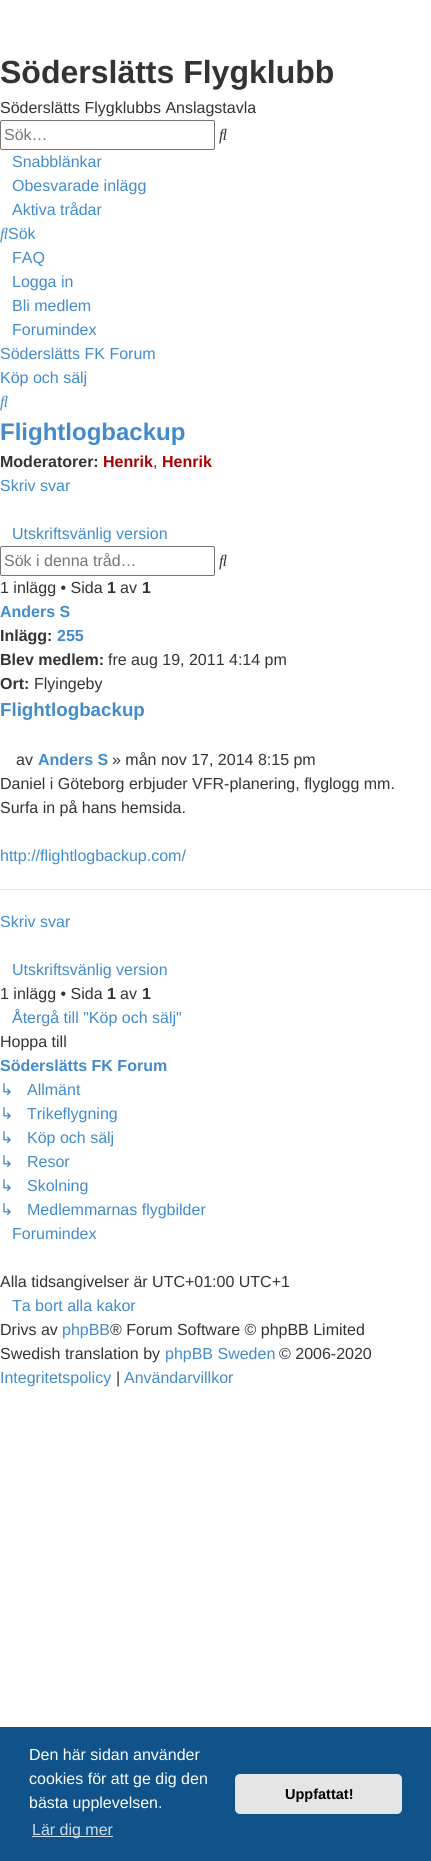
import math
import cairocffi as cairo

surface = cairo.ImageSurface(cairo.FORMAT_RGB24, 431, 1861)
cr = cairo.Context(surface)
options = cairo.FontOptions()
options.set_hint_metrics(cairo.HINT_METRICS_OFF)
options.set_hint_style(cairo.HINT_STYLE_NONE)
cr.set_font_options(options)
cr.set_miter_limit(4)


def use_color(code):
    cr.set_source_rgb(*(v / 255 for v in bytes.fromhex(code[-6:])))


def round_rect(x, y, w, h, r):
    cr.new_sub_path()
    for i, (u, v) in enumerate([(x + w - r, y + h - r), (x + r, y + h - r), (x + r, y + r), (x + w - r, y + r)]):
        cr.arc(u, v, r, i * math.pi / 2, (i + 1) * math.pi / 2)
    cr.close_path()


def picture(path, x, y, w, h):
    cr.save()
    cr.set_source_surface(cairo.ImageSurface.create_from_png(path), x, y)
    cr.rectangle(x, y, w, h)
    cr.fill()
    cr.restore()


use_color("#ffffff")
cr.paint()
cr.select_font_face("Liberation Sans", cairo.FONT_SLANT_NORMAL, cairo.FONT_WEIGHT_BOLD)
cr.set_font_size(32)
use_color("#333333")
cr.move_to(0, 83)
cr.show_text("Söderslätts Flygklubb")
cr.select_font_face("Liberation Sans")
cr.set_font_size(16)
cr.move_to(0, 113)
cr.show_text("Söderslätts Flygklubbs Anslagstavla")
round_rect(0.5, 120.5, 214, 29, 1.5)
use_color("#767676")
cr.set_line_width(1)
cr.stroke()
use_color("#757575")
cr.move_to(4, 140)
cr.show_text("Sök…")
picture("img1.png", 219, 128, 8, 16)
use_color("#428bca")
cr.move_to(12, 167)
cr.show_text("Snabblänkar")
cr.move_to(12, 191)
cr.show_text("Obesvarade inlägg")
cr.move_to(12, 215)
cr.show_text("Aktiva trådar")
picture("img2.png", 0, 227, 8, 16)
cr.move_to(8, 239)
cr.show_text("Sök")
cr.move_to(12, 263)
cr.show_text("FAQ")
cr.move_to(12, 287)
cr.show_text("Logga in")
cr.move_to(12, 311)
cr.show_text("Bli medlem")
cr.move_to(12, 335)
cr.show_text("Forumindex")
cr.move_to(0, 359)
cr.show_text("Söderslätts FK Forum")
cr.move_to(0, 383)
cr.show_text("Köp och sälj")
picture("img2.png", 0, 395, 8, 16)
cr.select_font_face("Liberation Sans", cairo.FONT_SLANT_NORMAL, cairo.FONT_WEIGHT_BOLD)
cr.set_font_size(24)
cr.move_to(0, 440)
cr.show_text("Flightlogbackup")
cr.set_font_size(16)
use_color("#333333")
cr.move_to(0, 467)
cr.show_text("Moderatorer:")
use_color("#aa0000")
cr.move_to(103, 467)
cr.show_text("Henrik")
cr.select_font_face("Liberation Sans")
use_color("#333333")
cr.move_to(153, 467)
cr.show_text(",")
cr.select_font_face("Liberation Sans", cairo.FONT_SLANT_NORMAL, cairo.FONT_WEIGHT_BOLD)
use_color("#aa0000")
cr.move_to(162, 467)
cr.show_text("Henrik")
cr.select_font_face("Liberation Sans")
use_color("#428bca")
cr.move_to(0, 491)
cr.show_text("Skriv svar")
cr.move_to(12, 539)
cr.show_text("Utskriftsvänlig version")
round_rect(0.5, 546.5, 214, 29, 1.5)
use_color("#767676")
cr.stroke()
use_color("#757575")
cr.move_to(4, 566)
cr.show_text("Sök i denna tråd…")
picture("img1.png", 219, 554, 8, 16)
use_color("#333333")
cr.move_to(0, 593)
cr.show_text("1 inlägg • Sida")
cr.select_font_face("Liberation Sans", cairo.FONT_SLANT_NORMAL, cairo.FONT_WEIGHT_BOLD)
cr.move_to(107, 593)
cr.show_text("1")
cr.select_font_face("Liberation Sans")
cr.move_to(120, 593)
cr.show_text("av")
cr.select_font_face("Liberation Sans", cairo.FONT_SLANT_NORMAL, cairo.FONT_WEIGHT_BOLD)
cr.move_to(142, 593)
cr.show_text("1")
use_color("#428bca")
cr.move_to(0, 617)
cr.show_text("Anders S")
use_color("#333333")
cr.move_to(0, 641)
cr.show_text("Inlägg:")
use_color("#428bca")
cr.move_to(57, 641)
cr.show_text("255")
use_color("#333333")
cr.move_to(0, 665)
cr.show_text("Blev medlem:")
cr.select_font_face("Liberation Sans")
cr.move_to(108, 665)
cr.show_text("fre aug 19, 2011 4:14 pm")
cr.select_font_face("Liberation Sans", cairo.FONT_SLANT_NORMAL, cairo.FONT_WEIGHT_BOLD)
cr.move_to(0, 689)
cr.show_text("Ort:")
cr.select_font_face("Liberation Sans")
cr.move_to(34, 689)
cr.show_text("Flyingeby")
cr.select_font_face("Liberation Sans", cairo.FONT_SLANT_NORMAL, cairo.FONT_WEIGHT_BOLD)
cr.set_font_size(18.75)
use_color("#428bca")
cr.move_to(0, 716)
cr.show_text("Flightlogbackup")
cr.select_font_face("Liberation Sans")
cr.set_font_size(16)
use_color("#333333")
cr.move_to(16, 765)
cr.show_text("av")
cr.select_font_face("Liberation Sans", cairo.FONT_SLANT_NORMAL, cairo.FONT_WEIGHT_BOLD)
use_color("#428bca")
cr.move_to(38, 765)
cr.show_text("Anders S")
cr.select_font_face("Liberation Sans")
use_color("#333333")
cr.move_to(112, 765)
cr.show_text("» mån nov 17, 2014 8:15 pm")
cr.move_to(0, 789)
cr.show_text("Daniel i Göteborg erbjuder VFR-planering, flyglogg mm.")
cr.move_to(0, 813)
cr.show_text("Surfa in på hans hemsida.")
use_color("#428bca")
cr.move_to(0, 861)
cr.show_text("http://flightlogbackup.com/")
use_color("#e5e5e5")
cr.rectangle(0, 889, 431, 1)
cr.fill()
use_color("#428bca")
cr.move_to(0, 927)
cr.show_text("Skriv svar")
cr.move_to(12, 975)
cr.show_text("Utskriftsvänlig version")
use_color("#333333")
cr.move_to(0, 999)
cr.show_text("1 inlägg • Sida")
cr.select_font_face("Liberation Sans", cairo.FONT_SLANT_NORMAL, cairo.FONT_WEIGHT_BOLD)
cr.move_to(107, 999)
cr.show_text("1")
cr.select_font_face("Liberation Sans")
cr.move_to(120, 999)
cr.show_text("av")
cr.select_font_face("Liberation Sans", cairo.FONT_SLANT_NORMAL, cairo.FONT_WEIGHT_BOLD)
cr.move_to(142, 999)
cr.show_text("1")
cr.select_font_face("Liberation Sans")
use_color("#428bca")
cr.move_to(12, 1023)
cr.show_text("Återgå till \"Köp och sälj\"")
use_color("#333333")
cr.move_to(0, 1047)
cr.show_text("Hoppa till")
cr.select_font_face("Liberation Sans", cairo.FONT_SLANT_NORMAL, cairo.FONT_WEIGHT_BOLD)
use_color("#428bca")
cr.move_to(0, 1071)
cr.show_text("Söderslätts FK Forum")
cr.select_font_face("DejaVu Sans")
cr.move_to(0, 1095)
cr.show_text("↳")
cr.select_font_face("Liberation Sans")
cr.move_to(27, 1095)
cr.show_text("Allmänt")
cr.select_font_face("DejaVu Sans")
cr.move_to(0, 1119)
cr.show_text("↳")
cr.select_font_face("Liberation Sans")
cr.move_to(27, 1119)
cr.show_text("Trikeflygning")
cr.select_font_face("DejaVu Sans")
cr.move_to(0, 1143)
cr.show_text("↳")
cr.select_font_face("Liberation Sans")
cr.move_to(27, 1143)
cr.show_text("Köp och sälj")
cr.select_font_face("DejaVu Sans")
cr.move_to(0, 1167)
cr.show_text("↳")
cr.select_font_face("Liberation Sans")
cr.move_to(27, 1167)
cr.show_text("Resor")
cr.select_font_face("DejaVu Sans")
cr.move_to(0, 1191)
cr.show_text("↳")
cr.select_font_face("Liberation Sans")
cr.move_to(27, 1191)
cr.show_text("Skolning")
cr.select_font_face("DejaVu Sans")
cr.move_to(0, 1215)
cr.show_text("↳")
cr.select_font_face("Liberation Sans")
cr.move_to(27, 1215)
cr.show_text("Medlemmarnas flygbilder")
cr.move_to(12, 1239)
cr.show_text("Forumindex")
use_color("#333333")
cr.move_to(0, 1287)
cr.show_text("Alla tidsangivelser är UTC+01:00 UTC+1")
use_color("#428bca")
cr.move_to(12, 1311)
cr.show_text("Ta bort alla kakor")
use_color("#333333")
cr.move_to(0, 1335)
cr.show_text("Drivs av")
use_color("#428bca")
cr.move_to(62, 1335)
cr.show_text("phpBB")
use_color("#333333")
cr.move_to(110, 1335)
cr.show_text("® Forum Software © phpBB Limited")
cr.move_to(0, 1359)
cr.show_text("Swedish translation by")
use_color("#428bca")
cr.move_to(165, 1359)
cr.show_text("phpBB Sweden")
use_color("#333333")
cr.move_to(279, 1359)
cr.show_text("© 2006-2020")
use_color("#428bca")
cr.move_to(0, 1383)
cr.show_text("Integritetspolicy")
use_color("#333333")
cr.move_to(116, 1383)
cr.show_text("|")
use_color("#428bca")
cr.move_to(124, 1383)
cr.show_text("Användarvillkor")
use_color("#0f538a")
cr.rectangle(0, 1727, 431, 134)
cr.fill()
use_color("#ffffff")
cr.move_to(29, 1760)
cr.show_text("Den här sidan använder")
cr.move_to(29, 1784)
cr.show_text("cookies för att ge dig den")
cr.move_to(29, 1808)
cr.show_text("bästa upplevelsen.")
use_color("#cfdde8")
cr.rectangle(32, 1836, 81, 1)
cr.fill()
cr.move_to(32, 1835)
cr.show_text("Lär dig mer")
use_color("#e5e5e5")
round_rect(235, 1774, 167, 40, 5)
cr.fill()
cr.select_font_face("Liberation Sans", cairo.FONT_SLANT_NORMAL, cairo.FONT_WEIGHT_BOLD)
cr.set_font_size(14.5)
use_color("#000000")
cr.move_to(285, 1799)
cr.show_text("Uppfattat!")
surface.write_to_png("result.png")
